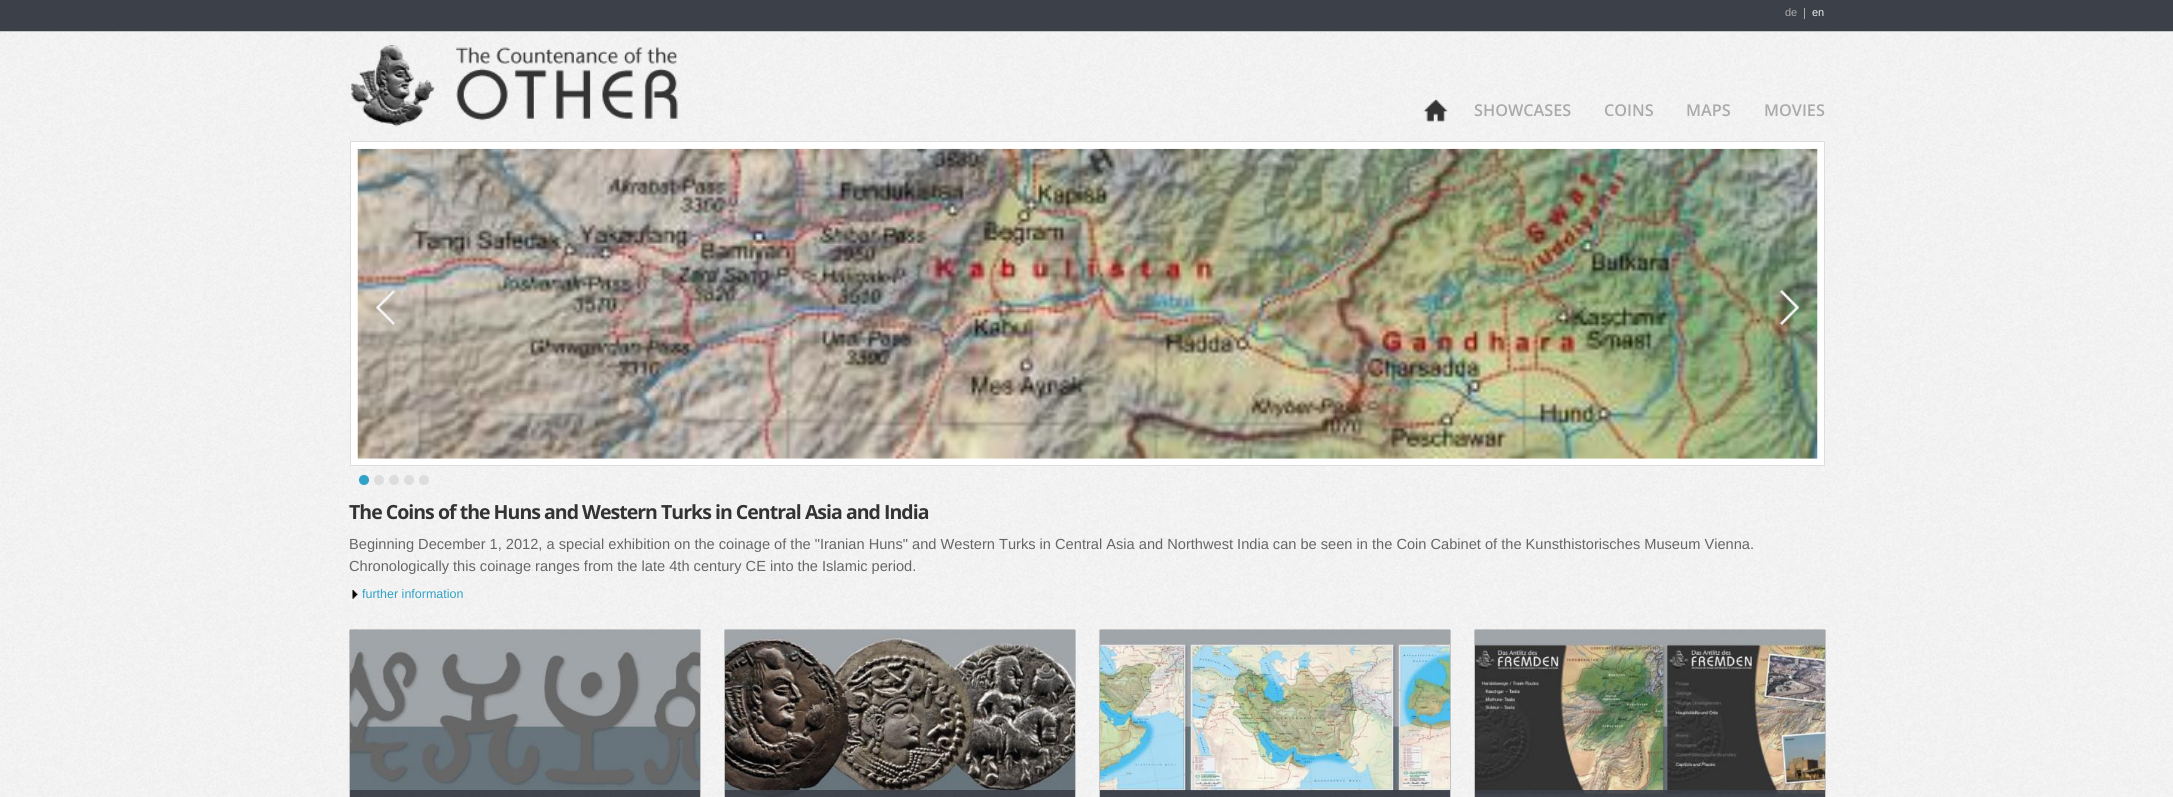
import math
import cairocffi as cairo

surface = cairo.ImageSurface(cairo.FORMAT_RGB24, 2173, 797)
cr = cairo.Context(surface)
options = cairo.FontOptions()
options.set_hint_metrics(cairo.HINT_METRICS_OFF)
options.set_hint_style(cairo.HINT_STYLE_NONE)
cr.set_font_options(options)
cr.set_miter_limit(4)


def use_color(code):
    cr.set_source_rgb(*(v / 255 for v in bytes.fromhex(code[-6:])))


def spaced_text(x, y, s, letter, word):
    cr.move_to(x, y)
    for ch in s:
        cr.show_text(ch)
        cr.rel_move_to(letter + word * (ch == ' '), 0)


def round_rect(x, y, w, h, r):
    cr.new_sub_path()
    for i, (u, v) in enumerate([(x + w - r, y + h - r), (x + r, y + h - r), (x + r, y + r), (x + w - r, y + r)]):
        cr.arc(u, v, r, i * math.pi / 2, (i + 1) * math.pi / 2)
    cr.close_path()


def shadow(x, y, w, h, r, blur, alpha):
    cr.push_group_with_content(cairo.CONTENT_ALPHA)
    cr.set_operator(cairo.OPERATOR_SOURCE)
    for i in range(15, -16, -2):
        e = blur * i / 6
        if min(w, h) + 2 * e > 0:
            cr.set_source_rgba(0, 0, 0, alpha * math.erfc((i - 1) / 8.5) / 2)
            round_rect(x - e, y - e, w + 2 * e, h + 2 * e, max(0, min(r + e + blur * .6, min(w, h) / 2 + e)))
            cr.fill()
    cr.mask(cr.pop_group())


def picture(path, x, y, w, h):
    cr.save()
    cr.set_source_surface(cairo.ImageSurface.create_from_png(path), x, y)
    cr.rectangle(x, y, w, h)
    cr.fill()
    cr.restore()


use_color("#ffffff")
cr.paint()
picture("img1.png", 0, 31, 2173, 766)
use_color("#3c4048")
cr.rectangle(0, 0, 2173, 31)
cr.fill()
picture("img2.png", 0, 31, 2173, 1)
use_color("#aaaaaa")
cr.rectangle(1804, 8, 1, 11)
cr.fill()
cr.select_font_face("Liberation Sans")
cr.set_font_size(11)
cr.move_to(1785, 16)
cr.show_text("de")
use_color("#eeeeee")
cr.move_to(1812, 16)
cr.show_text("en")
picture("img3.png", 351, 44, 327, 83)
picture("img4.png", 1423, 98, 25, 24)
cr.select_font_face("Open Sans SemiBold")
cr.set_font_size(16.25)
use_color("#aaaaaa")
cr.move_to(1474, 116)
cr.show_text("SHOWCASES")
cr.move_to(1604, 116)
cr.show_text("COINS")
cr.move_to(1686, 116)
cr.show_text("MAPS")
cr.move_to(1764, 116)
cr.show_text("MOVIES")
use_color("#ffffff")
cr.rectangle(350.5, 141.5, 1474, 324)
cr.fill_preserve()
use_color("#dddddd")
cr.set_line_width(1)
cr.stroke()
picture("img5.png", 357, 148, 1461, 311)
picture("img6.png", 376, 290, 20, 36)
picture("img7.png", 1779, 289, 20, 37)
use_color("#32a1c7")
cr.arc(364, 480, 5, 0, 2 * math.pi)
cr.fill()
use_color("#dddddd")
cr.arc(379, 480, 5, 0, 2 * math.pi)
cr.fill()
cr.arc(394, 480, 5, 0, 2 * math.pi)
cr.fill()
cr.arc(409, 480, 5, 0, 2 * math.pi)
cr.fill()
cr.arc(424, 480, 5, 0, 2 * math.pi)
cr.fill()
cr.select_font_face("Open Sans", cairo.FONT_SLANT_NORMAL, cairo.FONT_WEIGHT_BOLD)
cr.set_font_size(19.5)
use_color("#333333")
spaced_text(349, 519, "The Coins of the Huns and Western Turks in Central Asia and India", -0.98, 0)
cr.select_font_face("Liberation Sans")
cr.set_font_size(14.62)
use_color("#666666")
cr.move_to(349, 549)
cr.show_text("Beginning December 1, 2012, a special exhibition on the coinage of the \"Iranian Huns\" and Western Turks in Central Asia and Northwest India can be seen in the Coin Cabinet of the Kunsthistorisches Museum Vienna.")
cr.move_to(349, 571)
cr.show_text("Chronologically this coinage ranges from the late 4th century CE into the Islamic period.")
picture("img8.png", 352, 590, 6, 9)
cr.set_font_size(12.5)
use_color("#32a1c7")
cr.move_to(362, 598)
cr.show_text("further information")
use_color("#333333")
shadow(350, 630, 350, 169, 0, 0.5, 1)
picture("img9.png", 350, 630, 350, 167)
picture("img10.png", 350, 790, 350, 7)
shadow(725, 630, 350, 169, 0, 0.5, 1)
picture("img11.png", 725, 630, 350, 167)
picture("img12.png", 725, 790, 350, 7)
shadow(1100, 630, 350, 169, 0, 0.5, 1)
picture("img13.png", 1100, 630, 350, 167)
picture("img14.png", 1100, 790, 350, 7)
shadow(1475, 630, 350, 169, 0, 0.5, 1)
picture("img15.png", 1475, 630, 350, 167)
picture("img16.png", 1475, 790, 350, 7)
surface.write_to_png("result.png")
